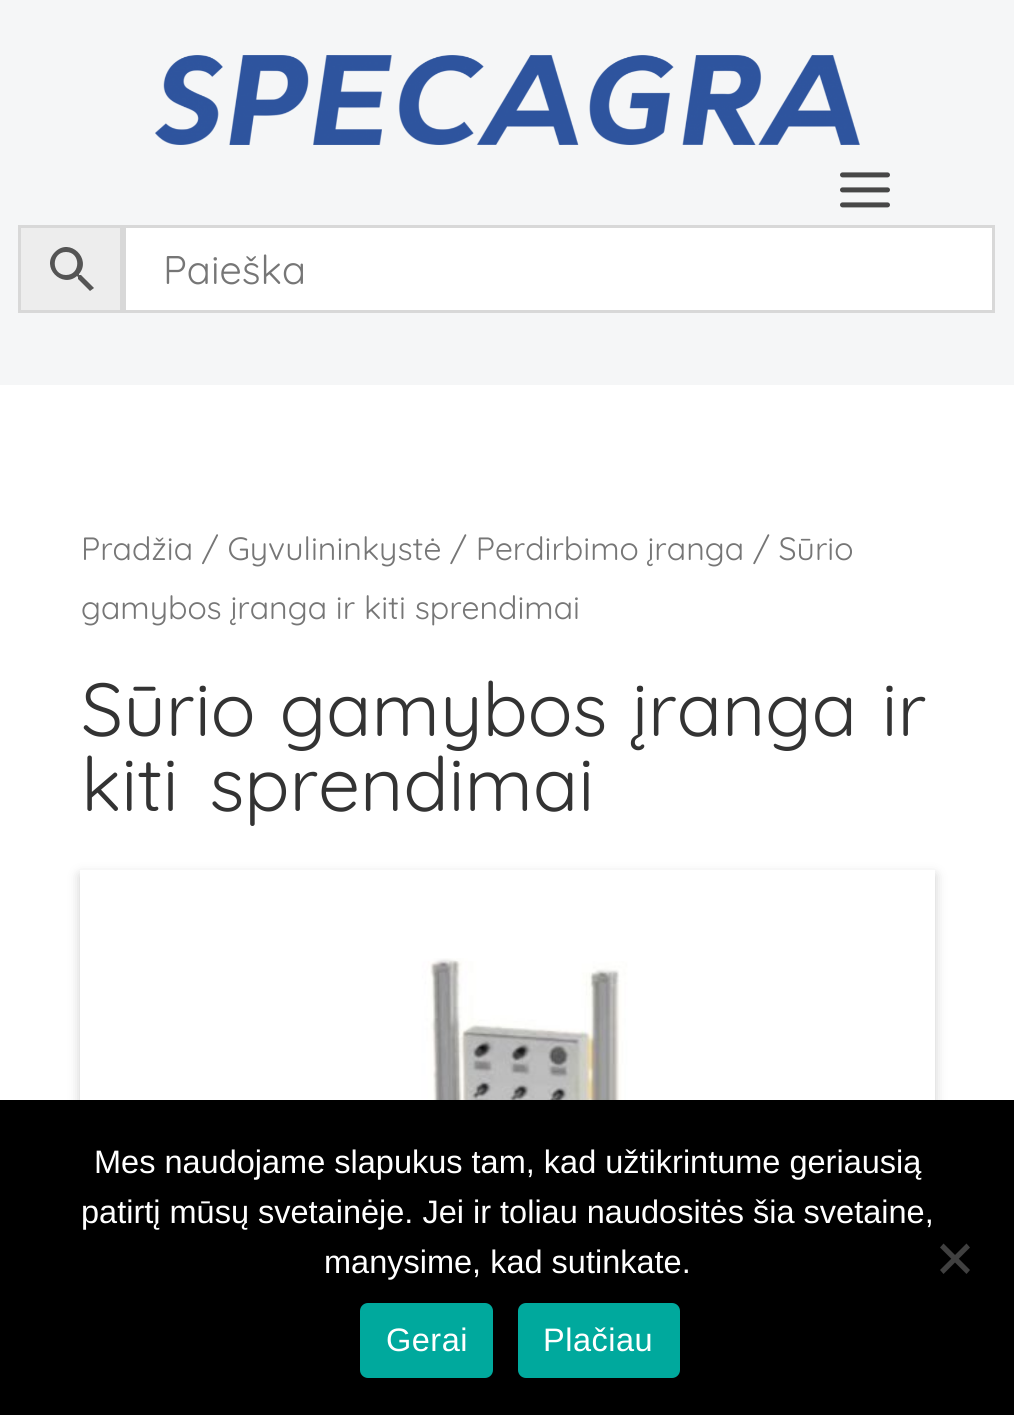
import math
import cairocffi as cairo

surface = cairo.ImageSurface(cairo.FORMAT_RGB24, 1014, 1415)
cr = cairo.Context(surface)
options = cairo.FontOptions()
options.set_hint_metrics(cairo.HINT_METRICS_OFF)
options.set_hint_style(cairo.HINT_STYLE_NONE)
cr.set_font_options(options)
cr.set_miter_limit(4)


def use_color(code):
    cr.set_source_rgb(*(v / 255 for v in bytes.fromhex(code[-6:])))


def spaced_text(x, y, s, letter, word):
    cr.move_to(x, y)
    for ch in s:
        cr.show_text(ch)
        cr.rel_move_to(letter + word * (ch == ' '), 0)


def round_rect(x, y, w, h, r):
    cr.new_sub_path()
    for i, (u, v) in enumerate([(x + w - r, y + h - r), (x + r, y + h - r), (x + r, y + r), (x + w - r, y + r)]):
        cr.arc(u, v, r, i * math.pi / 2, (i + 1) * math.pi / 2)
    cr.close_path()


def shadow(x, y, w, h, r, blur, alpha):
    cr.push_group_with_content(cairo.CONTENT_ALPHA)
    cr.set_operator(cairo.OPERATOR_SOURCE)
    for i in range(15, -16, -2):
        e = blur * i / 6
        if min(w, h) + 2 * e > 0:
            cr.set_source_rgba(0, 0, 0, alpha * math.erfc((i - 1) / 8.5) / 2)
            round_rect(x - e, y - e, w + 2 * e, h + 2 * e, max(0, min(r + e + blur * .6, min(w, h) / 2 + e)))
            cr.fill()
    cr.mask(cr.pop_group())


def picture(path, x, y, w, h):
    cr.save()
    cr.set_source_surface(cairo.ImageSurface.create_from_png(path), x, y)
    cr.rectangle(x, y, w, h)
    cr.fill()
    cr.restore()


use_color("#ffffff")
cr.paint()
use_color("#f5f6f7")
cr.rectangle(0, 0, 1014, 385)
cr.fill()
picture("img1.png", 155, 55, 705, 90)
picture("img2.png", 840, 172, 50, 36)
use_color("#ededed")
cr.rectangle(19.5, 226.5, 102, 85)
cr.fill_preserve()
use_color("#d8d8d8")
cr.set_line_width(3)
cr.stroke()
use_color("#555555")
cr.new_path()
cr.move_to(81, 275)
cr.line_to(79, 275)
cr.line_to(79, 274)
cr.curve_to(92, 259, 70, 237, 55, 252)
cr.curve_to(40, 267, 62, 289, 77, 276)
cr.line_to(78, 277)
cr.line_to(78, 279)
cr.line_to(90, 291)
cr.line_to(94, 288)
cr.close_path()
cr.move_to(66, 275)
cr.curve_to(51, 275, 51, 252, 66, 252)
cr.curve_to(81, 252, 81, 275, 66, 275)
cr.close_path()
cr.fill()
use_color("#ffffff")
cr.rectangle(124.5, 226.5, 869, 85)
cr.fill_preserve()
use_color("#d8d8d8")
cr.stroke()
cr.select_font_face("Quicksand")
cr.set_font_size(40)
use_color("#767676")
cr.move_to(163, 284)
cr.show_text("Paieška")
cr.set_font_size(32.2)
cr.move_to(81, 560)
cr.show_text("Pradžia / Gyvulininkystė / Perdirbimo įranga / Sūrio")
cr.move_to(81, 619)
cr.show_text("gamybos įranga ir kiti sprendimai")
cr.set_font_size(75)
use_color("#333333")
spaced_text(81, 736, "Sūrio gamybos įranga ir", 0, 4)
spaced_text(81, 811, "kiti sprendimai", 0, 10)
cr.save()
cr.set_fill_rule(cairo.FILL_RULE_EVEN_ODD)
cr.new_path()
cr.move_to(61, 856)
cr.line_to(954, 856)
cr.line_to(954, 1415)
cr.line_to(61, 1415)
cr.close_path()
cr.move_to(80, 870)
cr.line_to(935, 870)
cr.line_to(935, 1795)
cr.line_to(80, 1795)
cr.close_path()
cr.clip()
use_color("#000000")
shadow(80, 875, 855, 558, 0, 6, 0.2)
cr.restore()
picture("img3.png", 332, 958, 387, 142)
use_color("#000000")
cr.rectangle(0, 1100, 1014, 315)
cr.fill()
cr.select_font_face("Liberation Sans")
cr.set_font_size(32.5)
use_color("#ffffff")
cr.move_to(94, 1173)
cr.show_text("Mes naudojame slapukus tam, kad užtikrintume geriausią")
cr.move_to(81, 1223)
cr.show_text("patirtį mūsų svetainėje. Jei ir toliau naudositės šia svetaine,")
cr.move_to(324, 1273)
cr.show_text("manysime, kad sutinkate.")
use_color("#404040")
cr.new_path()
cr.move_to(966.5, 1243.5)
cr.line_to(970, 1247.5)
cr.line_to(943.5, 1274)
cr.line_to(940, 1270)
cr.close_path()
cr.fill()
cr.new_path()
cr.move_to(940, 1247.5)
cr.line_to(943.5, 1243.5)
cr.line_to(970, 1270)
cr.line_to(966.5, 1274)
cr.close_path()
cr.fill()
use_color("#00a99d")
round_rect(360, 1303, 133, 75, 8)
cr.fill()
use_color("#ffffff")
spaced_text(386, 1351, "Gerai", 0.5, 0)
use_color("#00a99d")
round_rect(518, 1303, 162, 75, 8)
cr.fill()
use_color("#ffffff")
spaced_text(543, 1351, "Plačiau", 0.5, 0)
surface.write_to_png("result.png")
